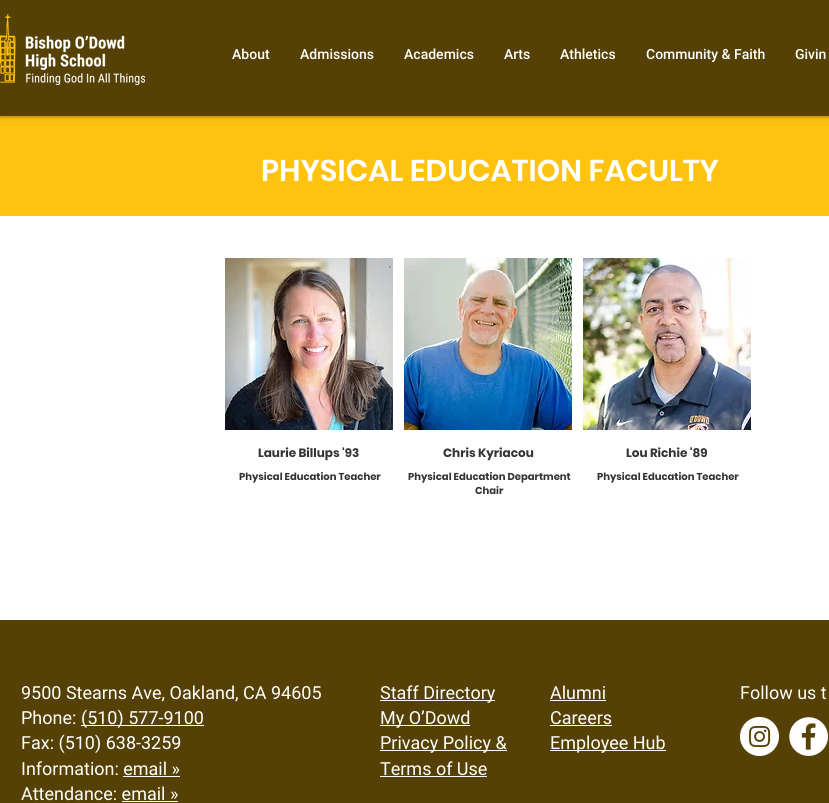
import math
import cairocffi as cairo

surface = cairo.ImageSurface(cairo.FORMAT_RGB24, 829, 803)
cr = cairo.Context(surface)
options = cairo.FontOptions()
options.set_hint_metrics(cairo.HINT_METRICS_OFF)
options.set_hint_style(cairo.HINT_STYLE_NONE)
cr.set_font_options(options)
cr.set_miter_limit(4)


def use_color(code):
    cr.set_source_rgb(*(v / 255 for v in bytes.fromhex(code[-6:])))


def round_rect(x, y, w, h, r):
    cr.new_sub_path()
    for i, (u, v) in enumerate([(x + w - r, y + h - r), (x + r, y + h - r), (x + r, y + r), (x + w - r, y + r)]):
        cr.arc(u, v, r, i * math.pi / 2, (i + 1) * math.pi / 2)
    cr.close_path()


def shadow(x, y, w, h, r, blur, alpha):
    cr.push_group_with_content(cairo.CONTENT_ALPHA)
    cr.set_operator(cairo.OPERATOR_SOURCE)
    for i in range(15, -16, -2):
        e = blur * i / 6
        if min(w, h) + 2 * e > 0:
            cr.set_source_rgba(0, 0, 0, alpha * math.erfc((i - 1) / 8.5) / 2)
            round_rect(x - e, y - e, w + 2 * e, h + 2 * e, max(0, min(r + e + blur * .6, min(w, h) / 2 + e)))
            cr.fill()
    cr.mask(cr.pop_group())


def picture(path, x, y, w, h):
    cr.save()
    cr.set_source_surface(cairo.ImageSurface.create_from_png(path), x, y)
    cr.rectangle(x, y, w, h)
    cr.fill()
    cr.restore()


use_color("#ffffff")
cr.paint()
use_color("#ffc30f")
cr.rectangle(0, 116, 829, 100)
cr.fill()
use_color("#000000")
shadow(0, 0, 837, 116, 0, 2.5, 0.5)
use_color("#554105")
cr.rectangle(0, 0, 829, 116)
cr.fill()
picture("img1.png", 0, 14, 145, 71)
cr.select_font_face("Roboto Medium")
cr.set_font_size(14)
use_color("#ffffff")
cr.move_to(232, 59)
cr.show_text("About")
cr.move_to(300, 59)
cr.show_text("Admissions")
cr.move_to(404, 59)
cr.show_text("Academics")
cr.move_to(504, 59)
cr.show_text("Arts")
cr.move_to(560, 59)
cr.show_text("Athletics")
cr.move_to(646, 59)
cr.show_text("Community & Faith")
cr.move_to(795, 59)
cr.show_text("Givin")
cr.select_font_face("Poppins SemiBold")
cr.set_font_size(30)
cr.move_to(261, 181)
cr.show_text("PHYSICAL EDUCATION FACULTY")
picture("img2.png", 225, 258, 168, 172)
cr.select_font_face("Poppins", cairo.FONT_SLANT_NORMAL, cairo.FONT_WEIGHT_BOLD)
cr.set_font_size(12)
use_color("#333333")
cr.move_to(258, 457)
cr.show_text("Laurie Billups '93")
cr.set_font_size(10)
cr.move_to(239, 480)
cr.show_text("Physical Education Teacher")
picture("img3.png", 404, 258, 168, 172)
cr.set_font_size(12)
cr.move_to(443, 457)
cr.show_text("Chris Kyriacou")
cr.set_font_size(10)
cr.move_to(408, 480)
cr.show_text("Physical Education Department")
cr.move_to(475, 494)
cr.show_text("Chair")
picture("img4.png", 583, 258, 168, 172)
cr.set_font_size(12)
cr.move_to(626, 457)
cr.show_text("Lou Richie '89")
cr.set_font_size(10)
cr.move_to(597, 480)
cr.show_text("Physical Education Teacher")
use_color("#554105")
cr.rectangle(0, 620, 829, 183)
cr.fill()
cr.select_font_face("Roboto")
cr.set_font_size(18)
use_color("#ffffff")
cr.move_to(21, 699)
cr.show_text("9500 Stearns Ave, Oakland, CA 94605")
cr.move_to(21, 724)
cr.show_text("Phone:")
cr.rectangle(81, 725, 123, 1)
cr.fill()
cr.move_to(81, 724)
cr.show_text("(510) 577-9100")
cr.move_to(21, 749)
cr.show_text("Fax: (510) 638-3259")
cr.move_to(21, 775)
cr.show_text("Information: email »")
cr.rectangle(123, 776, 57, 1)
cr.fill()
cr.move_to(21, 800)
cr.show_text("Attendance: email »")
cr.rectangle(122, 801, 56, 1)
cr.fill()
cr.rectangle(380, 700, 115, 1)
cr.fill()
cr.move_to(380, 699)
cr.show_text("Staff Directory")
cr.rectangle(380, 725, 90, 1)
cr.fill()
cr.move_to(380, 724)
cr.show_text("My O’Dowd")
cr.rectangle(380, 750, 127, 1)
cr.fill()
cr.move_to(380, 749)
cr.show_text("Privacy Policy &")
cr.move_to(380, 775)
cr.show_text("Terms of Use")
cr.rectangle(380, 776, 107, 1)
cr.fill()
cr.move_to(550, 699)
cr.show_text("Alumni")
cr.rectangle(550, 700, 56, 1)
cr.fill()
cr.move_to(550, 724)
cr.show_text("Careers")
cr.rectangle(550, 725, 62, 1)
cr.fill()
cr.rectangle(550, 750, 116, 1)
cr.fill()
cr.move_to(550, 749)
cr.show_text("Employee Hub")
cr.move_to(740, 699)
cr.show_text("Follow us t")
picture("img5.png", 740, 717, 39, 39)
picture("img6.png", 789, 717, 39, 39)
surface.write_to_png("result.png")
